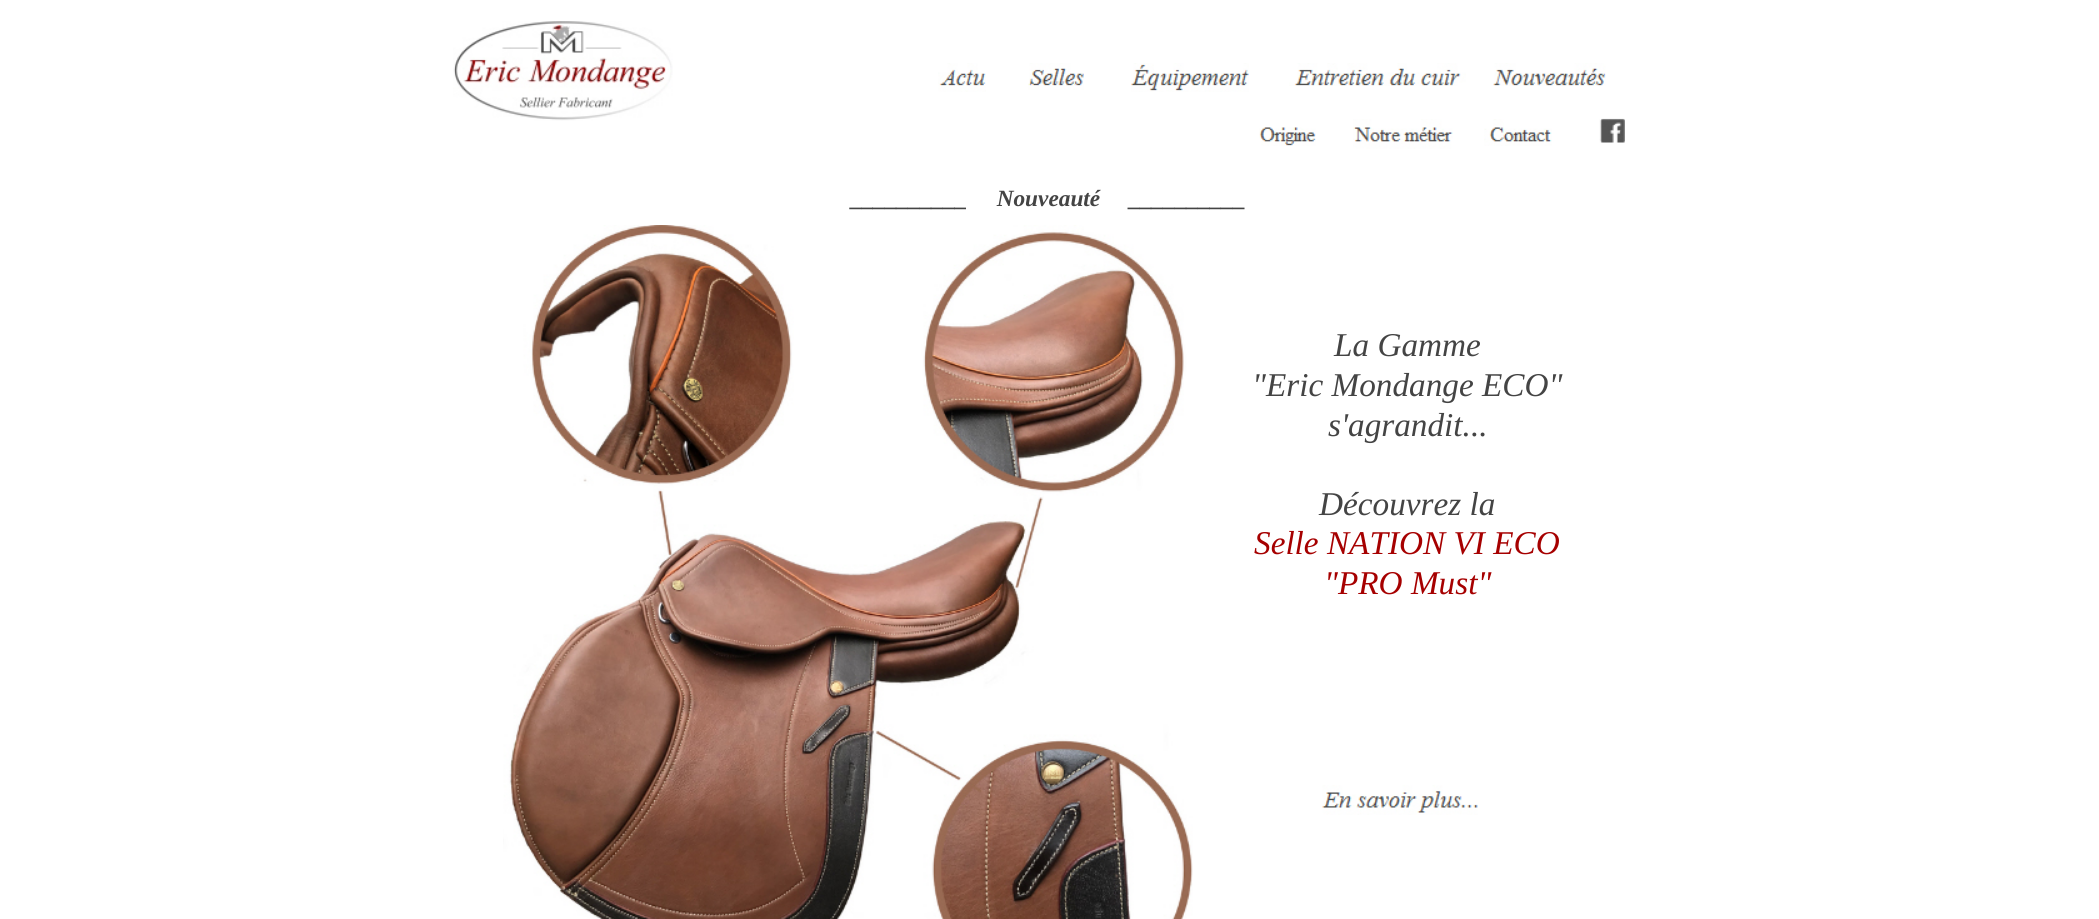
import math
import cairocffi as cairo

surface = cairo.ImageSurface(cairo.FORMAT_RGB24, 2099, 919)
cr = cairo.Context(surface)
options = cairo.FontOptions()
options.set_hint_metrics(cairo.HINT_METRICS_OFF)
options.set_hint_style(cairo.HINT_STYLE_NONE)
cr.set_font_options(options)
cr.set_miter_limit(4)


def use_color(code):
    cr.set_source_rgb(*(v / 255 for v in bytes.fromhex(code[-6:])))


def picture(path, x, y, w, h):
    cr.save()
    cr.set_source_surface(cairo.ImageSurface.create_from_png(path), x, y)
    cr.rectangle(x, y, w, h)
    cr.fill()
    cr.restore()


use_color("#ffffff")
cr.paint()
picture("img1.png", 453, 21, 220, 100)
picture("img2.png", 938, 63, 48, 29)
picture("img3.png", 1028, 63, 56, 27)
picture("img4.png", 1131, 63, 118, 29)
picture("img5.png", 1289, 63, 177, 23)
picture("img6.png", 1493, 63, 113, 23)
picture("img7.png", 1259, 127, 57, 19)
picture("img8.png", 1353, 119, 100, 30)
picture("img9.png", 1484, 119, 68, 27)
picture("img10.png", 1599, 118, 26, 25)
cr.select_font_face("Liberation Serif", cairo.FONT_SLANT_ITALIC, cairo.FONT_WEIGHT_BOLD)
cr.set_font_size(23.3)
use_color("#444444")
cr.move_to(851, 206)
cr.show_text("__________     Nouveauté     __________")
picture("img11.png", 503, 225, 690, 694)
cr.select_font_face("Liberation Serif", cairo.FONT_SLANT_ITALIC)
cr.set_font_size(33.25)
cr.move_to(1334, 356)
cr.show_text("La Gamme")
cr.move_to(1252, 396)
cr.show_text("\"Eric Mondange ECO\"")
cr.move_to(1328, 436)
cr.show_text("s'agrandit...")
cr.move_to(1319, 515)
cr.show_text("Découvrez la")
use_color("#a60000")
cr.move_to(1254, 554)
cr.show_text("Selle NATION VI ECO")
cr.move_to(1324, 594)
cr.show_text("\"PRO Must\"")
picture("img12.png", 1322, 785, 156, 30)
surface.write_to_png("result.png")
